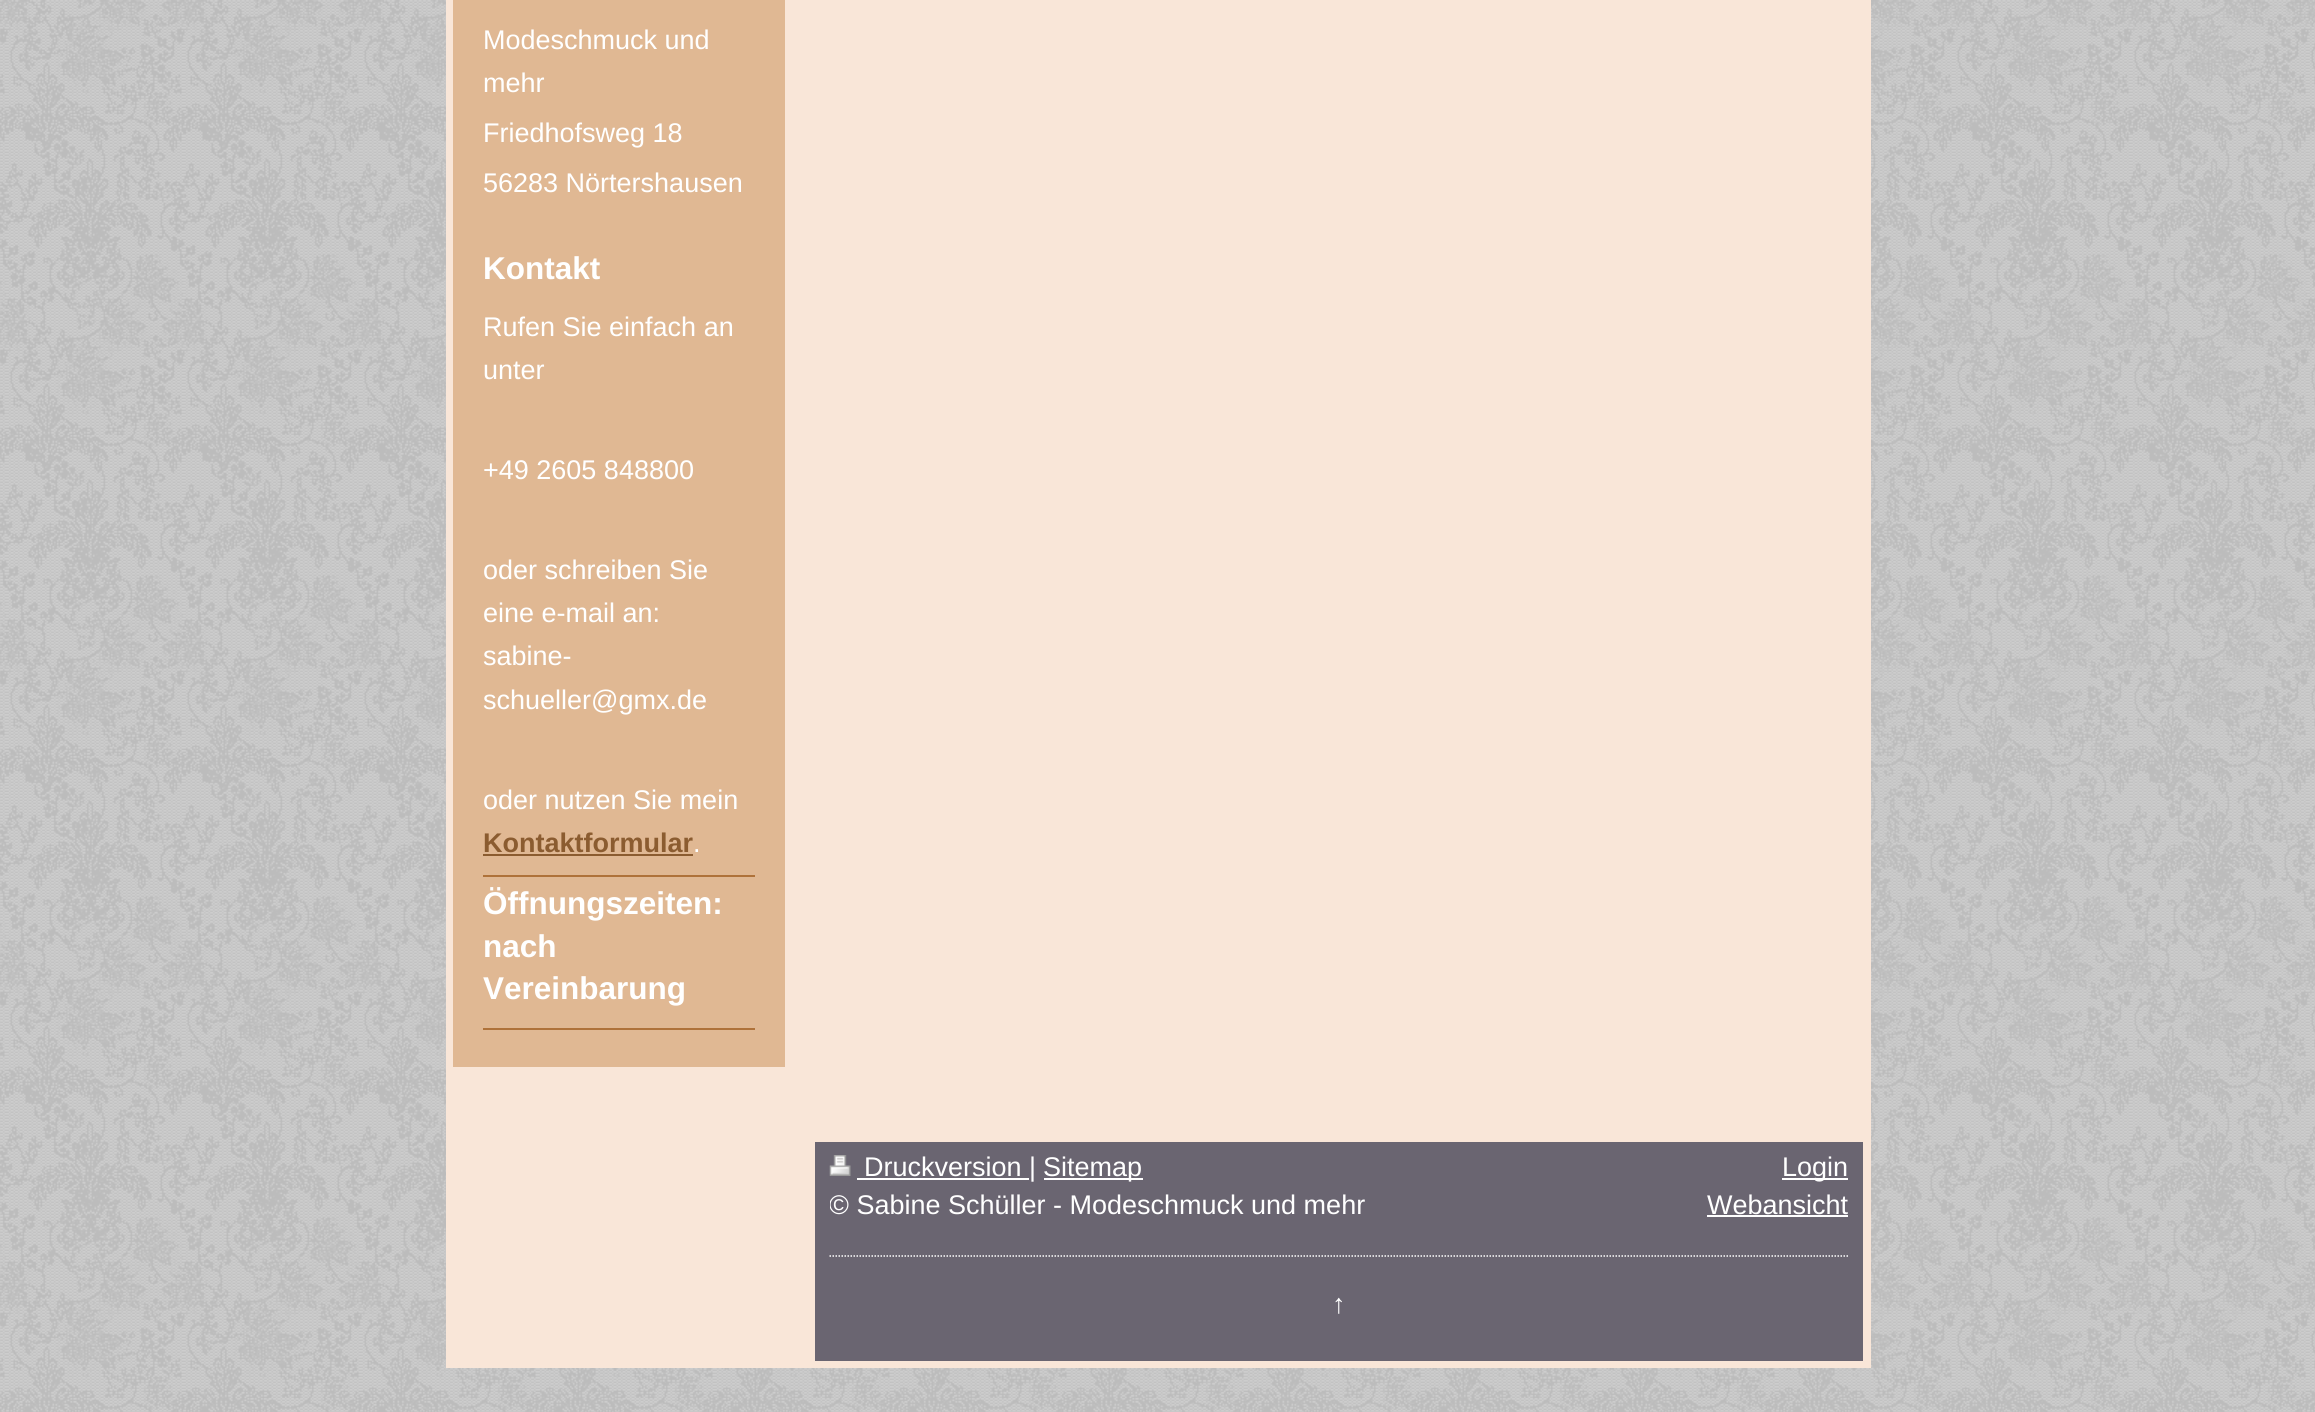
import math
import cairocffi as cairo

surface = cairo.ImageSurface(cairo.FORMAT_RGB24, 2315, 1412)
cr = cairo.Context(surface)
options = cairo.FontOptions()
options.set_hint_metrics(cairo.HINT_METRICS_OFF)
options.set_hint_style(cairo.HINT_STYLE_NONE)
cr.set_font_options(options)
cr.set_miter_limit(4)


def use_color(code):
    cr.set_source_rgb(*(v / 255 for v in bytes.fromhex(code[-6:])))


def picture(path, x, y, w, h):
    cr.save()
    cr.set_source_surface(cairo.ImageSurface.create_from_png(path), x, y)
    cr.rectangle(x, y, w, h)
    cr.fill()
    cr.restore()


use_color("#ffffff")
cr.paint()
picture("img1.png", 0, 0, 2315, 1412)
use_color("#f9e6d8")
cr.rectangle(446, 0, 1425, 1368)
cr.fill()
use_color("#e0b893")
cr.rectangle(453, 0, 332, 1067)
cr.fill()
cr.select_font_face("Liberation Sans")
cr.set_font_size(27)
use_color("#ffffff")
cr.move_to(483, 49)
cr.show_text("Modeschmuck und")
cr.move_to(483, 92)
cr.show_text("mehr")
cr.move_to(483, 142)
cr.show_text("Friedhofsweg 18")
cr.move_to(483, 192)
cr.show_text("56283 Nörtershausen")
cr.select_font_face("Liberation Sans", cairo.FONT_SLANT_NORMAL, cairo.FONT_WEIGHT_BOLD)
cr.set_font_size(31.5)
cr.move_to(483, 279)
cr.show_text("Kontakt")
cr.select_font_face("Liberation Sans")
cr.set_font_size(27)
cr.move_to(483, 336)
cr.show_text("Rufen Sie einfach an")
cr.move_to(483, 379)
cr.show_text("unter")
cr.move_to(483, 479)
cr.show_text("+49 2605 848800")
cr.move_to(483, 579)
cr.show_text("oder schreiben Sie")
cr.move_to(483, 622)
cr.show_text("eine e-mail an:")
cr.move_to(483, 665)
cr.show_text("sabine-")
cr.move_to(483, 709)
cr.show_text("schueller@gmx.de")
cr.move_to(483, 809)
cr.show_text("oder nutzen Sie mein")
cr.select_font_face("Liberation Sans", cairo.FONT_SLANT_NORMAL, cairo.FONT_WEIGHT_BOLD)
use_color("#8b5c30")
cr.move_to(483, 852)
cr.show_text("Kontaktformular")
cr.rectangle(483, 854, 210, 2)
cr.fill()
cr.select_font_face("Liberation Sans")
use_color("#ffffff")
cr.move_to(693, 852)
cr.show_text(".")
use_color("#af723a")
cr.rectangle(483, 875, 272, 2)
cr.fill()
cr.select_font_face("Liberation Sans", cairo.FONT_SLANT_NORMAL, cairo.FONT_WEIGHT_BOLD)
cr.set_font_size(31.5)
use_color("#ffffff")
cr.move_to(483, 914)
cr.show_text("Öffnungszeiten:")
cr.move_to(483, 957)
cr.show_text("nach")
cr.move_to(483, 999)
cr.show_text("Vereinbarung")
use_color("#af723a")
cr.rectangle(483, 1028, 272, 2)
cr.fill()
use_color("#6a6571")
cr.rectangle(815, 1142, 1048, 219)
cr.fill()
picture("img2.png", 829, 1155, 22, 21)
use_color("#ffffff")
cr.rectangle(857, 1178, 172, 2)
cr.fill()
cr.select_font_face("Liberation Sans")
cr.set_font_size(27)
cr.move_to(864, 1176)
cr.show_text("Druckversion |")
cr.rectangle(1044, 1178, 99, 2)
cr.fill()
cr.move_to(1043, 1176)
cr.show_text("Sitemap")
cr.save()
cr.rectangle(830, 1149, 1018, 77)
cr.clip()
cr.move_to(829, 1214)
cr.show_text("© Sabine Schüller - Modeschmuck und mehr")
cr.restore()
cr.rectangle(1782, 1178, 66, 2)
cr.fill()
cr.move_to(1782, 1176)
cr.show_text("Login")
cr.move_to(1707, 1214)
cr.show_text("Webansicht")
cr.rectangle(1707, 1215, 141, 2)
cr.fill()
cr.new_path()
cr.move_to(829.5, 1256)
cr.line_to(1848, 1256)
cr.set_line_width(1.5)
cr.set_dash([1.5, 1.5])
cr.stroke()
cr.move_to(1332, 1313)
cr.show_text("↑")
surface.write_to_png("result.png")
